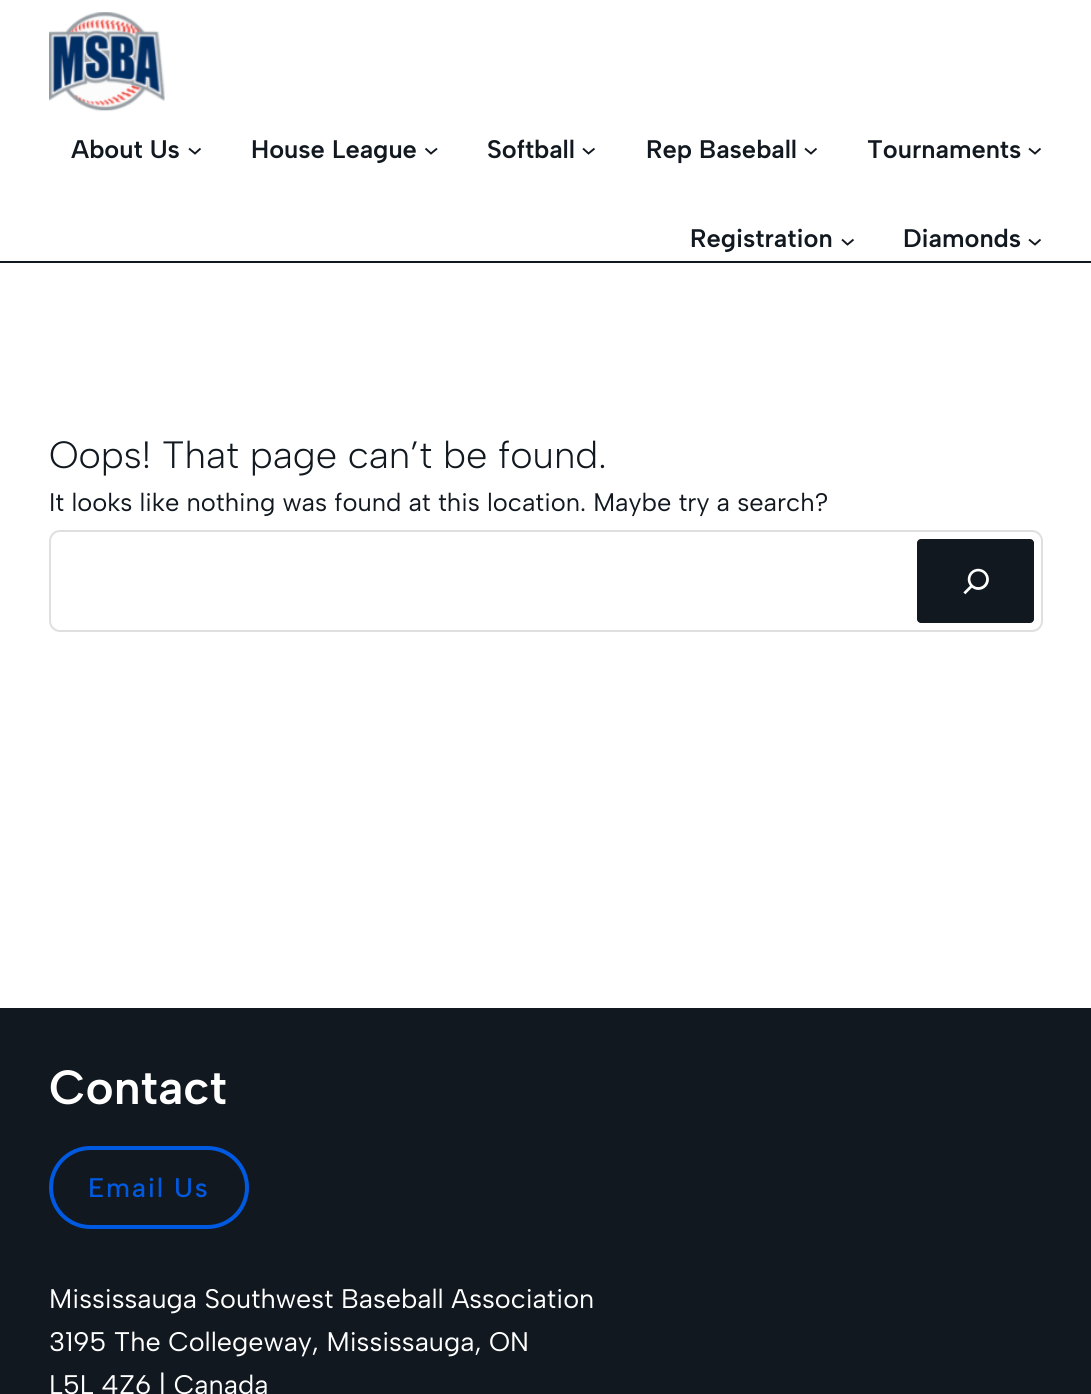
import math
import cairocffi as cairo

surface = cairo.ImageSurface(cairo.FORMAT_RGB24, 1091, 1394)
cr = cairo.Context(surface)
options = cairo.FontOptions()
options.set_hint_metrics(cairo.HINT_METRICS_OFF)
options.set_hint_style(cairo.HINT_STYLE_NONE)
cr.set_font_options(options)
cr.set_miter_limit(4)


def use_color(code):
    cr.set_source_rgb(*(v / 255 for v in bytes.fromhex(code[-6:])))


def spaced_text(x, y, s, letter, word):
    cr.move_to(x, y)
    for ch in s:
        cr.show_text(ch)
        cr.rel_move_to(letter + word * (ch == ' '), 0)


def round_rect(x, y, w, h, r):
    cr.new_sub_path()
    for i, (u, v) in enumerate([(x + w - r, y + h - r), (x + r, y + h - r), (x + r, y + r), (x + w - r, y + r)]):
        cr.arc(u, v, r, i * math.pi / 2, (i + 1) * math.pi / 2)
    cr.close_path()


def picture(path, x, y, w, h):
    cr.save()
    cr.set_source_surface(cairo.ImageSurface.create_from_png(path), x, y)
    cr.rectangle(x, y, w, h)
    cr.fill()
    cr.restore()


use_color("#ffffff")
cr.paint()
picture("img1.png", 49, 12, 116, 99)
cr.select_font_face("Albert Sans SemiBold")
cr.set_font_size(25.4)
use_color("#11181f")
cr.move_to(71, 158)
cr.show_text("About Us")
cr.new_path()
cr.move_to(189, 148.5)
cr.line_to(195, 153.5)
cr.line_to(200.5, 148.5)
cr.set_line_width(1.9)
cr.stroke()
cr.move_to(251, 158)
cr.show_text("House League")
cr.new_path()
cr.move_to(425.5, 148.5)
cr.line_to(431, 153.5)
cr.line_to(437, 148.5)
cr.stroke()
cr.move_to(487, 158)
cr.show_text("Softball")
cr.new_path()
cr.move_to(583, 148.5)
cr.line_to(588.5, 153.5)
cr.line_to(594.5, 148.5)
cr.stroke()
cr.move_to(646, 158)
cr.show_text("Rep Baseball")
cr.new_path()
cr.move_to(805, 148.5)
cr.line_to(811, 153.5)
cr.line_to(816.5, 148.5)
cr.stroke()
cr.move_to(867, 158)
cr.show_text("Tournaments")
cr.new_path()
cr.move_to(1029, 148.5)
cr.line_to(1035, 153.5)
cr.line_to(1040.5, 148.5)
cr.stroke()
cr.move_to(690, 247)
cr.show_text("Registration")
cr.new_path()
cr.move_to(842, 239.5)
cr.line_to(847.5, 244.5)
cr.line_to(853.5, 239.5)
cr.stroke()
cr.move_to(903, 247)
cr.show_text("Diamonds")
cr.new_path()
cr.move_to(1029, 239.5)
cr.line_to(1035, 244.5)
cr.line_to(1040.5, 239.5)
cr.stroke()
cr.rectangle(0, 261, 1091, 2)
cr.fill()
cr.select_font_face("Albert Sans Light")
cr.set_font_size(38)
cr.move_to(49, 468)
cr.show_text("Oops! That page can’t be found.")
cr.select_font_face("Albert Sans")
cr.set_font_size(25.4)
cr.move_to(49, 511)
cr.show_text("It looks like nothing was found at this location. Maybe try a search?")
round_rect(50, 531, 992, 100, 10)
use_color("#dfdfdf")
cr.set_line_width(2)
cr.stroke()
use_color("#11181f")
round_rect(917, 539, 117, 84, 4)
cr.fill()
picture("img2.png", 963, 568, 26, 27)
cr.rectangle(0, 1008, 1091, 386)
cr.fill()
cr.select_font_face("Albert Sans SemiBold")
cr.set_font_size(48)
use_color("#ffffff")
cr.move_to(49, 1104)
cr.show_text("Contact")
round_rect(51, 1148, 196, 79, 39.5)
use_color("#005ae1")
cr.set_line_width(4)
cr.stroke()
cr.select_font_face("Albert Sans Medium")
cr.set_font_size(26.9)
spaced_text(88, 1197, "Email Us", 1.75, 0)
cr.select_font_face("Albert Sans")
use_color("#ffffff")
cr.move_to(49, 1308)
cr.show_text("Mississauga Southwest Baseball Association")
cr.move_to(49, 1351)
cr.show_text("3195 The Collegeway, Mississauga, ON")
cr.move_to(49, 1394)
cr.show_text("L5L 4Z6 | Canada")
surface.write_to_png("result.png")
